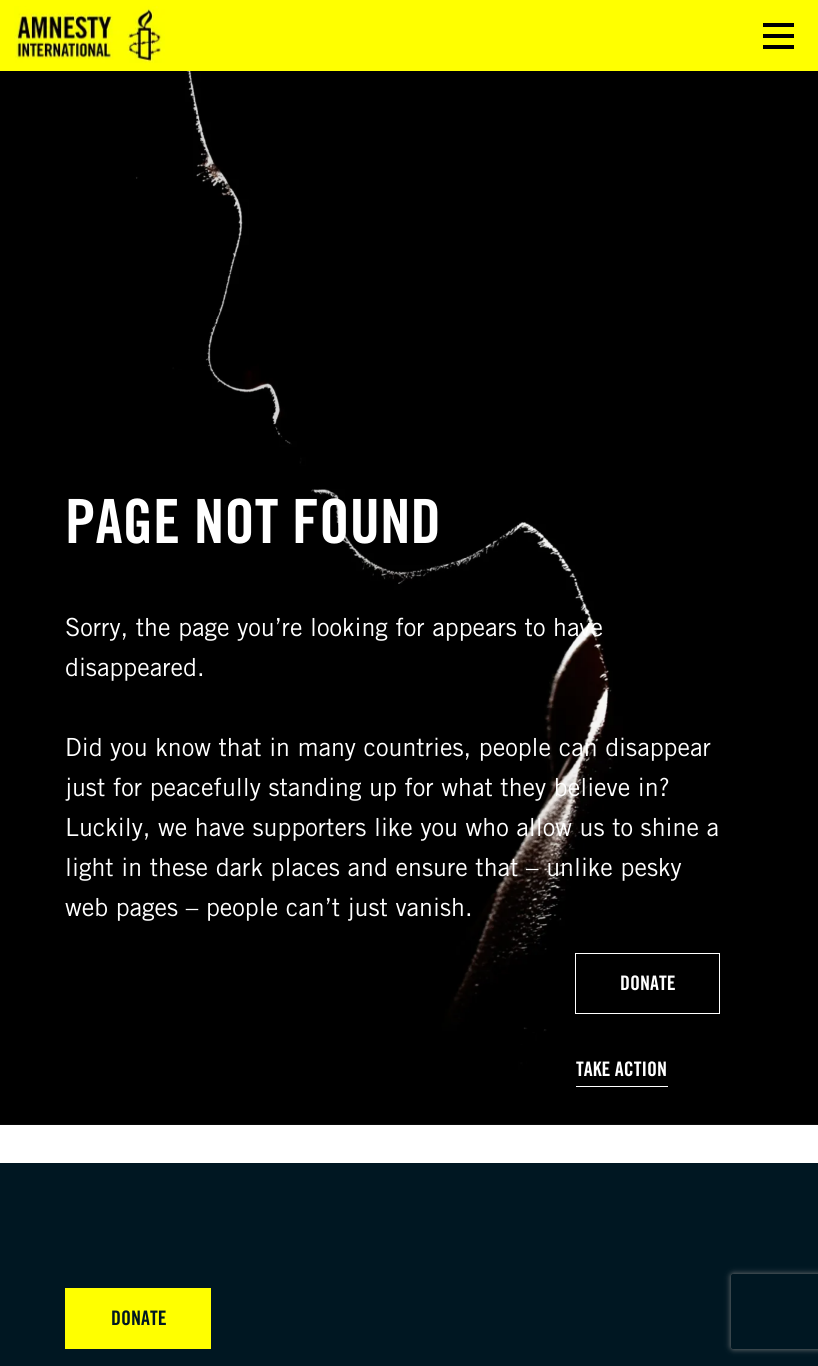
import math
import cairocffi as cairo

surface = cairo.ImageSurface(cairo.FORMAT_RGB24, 818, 1366)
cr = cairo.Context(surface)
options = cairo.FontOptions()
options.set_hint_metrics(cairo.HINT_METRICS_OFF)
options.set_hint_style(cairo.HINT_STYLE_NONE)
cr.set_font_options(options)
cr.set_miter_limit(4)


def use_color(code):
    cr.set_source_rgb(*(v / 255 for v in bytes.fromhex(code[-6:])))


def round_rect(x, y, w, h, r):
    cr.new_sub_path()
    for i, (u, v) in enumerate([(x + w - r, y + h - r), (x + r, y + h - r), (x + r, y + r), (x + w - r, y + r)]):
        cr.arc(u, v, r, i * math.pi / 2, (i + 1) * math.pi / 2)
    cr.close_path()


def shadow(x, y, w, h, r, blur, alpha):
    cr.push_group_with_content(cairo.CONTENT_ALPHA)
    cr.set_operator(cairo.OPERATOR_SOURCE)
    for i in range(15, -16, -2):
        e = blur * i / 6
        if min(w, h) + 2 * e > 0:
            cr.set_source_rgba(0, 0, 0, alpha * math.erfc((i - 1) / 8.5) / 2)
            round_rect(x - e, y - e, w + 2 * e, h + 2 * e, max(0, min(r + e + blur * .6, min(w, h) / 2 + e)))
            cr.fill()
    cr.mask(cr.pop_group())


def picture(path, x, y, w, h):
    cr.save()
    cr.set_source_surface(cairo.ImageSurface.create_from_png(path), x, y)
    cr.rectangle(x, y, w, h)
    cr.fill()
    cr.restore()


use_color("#ffffff")
cr.paint()
use_color("#ffff00")
cr.rectangle(0, 0, 818, 71)
cr.fill()
picture("img1.png", 14, 6, 151, 57)
use_color("#000000")
cr.rectangle(763, 23, 31, 4)
cr.fill()
cr.rectangle(763, 34, 31, 4)
cr.fill()
cr.rectangle(763, 45, 31, 4)
cr.fill()
picture("img2.png", 0, 71, 818, 1054)
gradient = cairo.LinearGradient(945, 387, -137, 741)
gradient.add_color_stop_rgba(0.33, 0, 0, 0, 0)
gradient.add_color_stop_rgba(1, 0, 0, 0, 0.45)
cr.set_source(gradient)
cr.rectangle(0, 71, 609, 1054)
cr.fill()
cr.select_font_face("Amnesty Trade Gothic", cairo.FONT_SLANT_NORMAL, cairo.FONT_WEIGHT_BOLD)
cr.set_font_size(61)
use_color("#ffffff")
cr.move_to(65, 543)
cr.show_text("PAGE NOT FOUND")
cr.select_font_face("Amnesty Trade Gothic")
cr.set_font_size(25)
cr.move_to(65, 636)
cr.show_text("Sorry, the page you’re looking for appears to have")
cr.move_to(65, 676)
cr.show_text("disappeared.")
cr.move_to(65, 756)
cr.show_text("Did you know that in many countries, people can disappear")
cr.move_to(65, 796)
cr.show_text("just for peacefully standing up for what they believe in?")
cr.move_to(65, 836)
cr.show_text("Luckily, we have supporters like you who allow us to shine a")
cr.move_to(65, 876)
cr.show_text("light in these dark places and ensure that – unlike pesky")
cr.move_to(65, 916)
cr.show_text("web pages – people can’t just vanish.")
cr.rectangle(575.5, 953.5, 144, 60)
cr.set_line_width(1)
cr.stroke()
cr.select_font_face("Amnesty Trade Gothic", cairo.FONT_SLANT_NORMAL, cairo.FONT_WEIGHT_BOLD)
cr.set_font_size(20)
cr.move_to(620, 990)
cr.show_text("DONATE")
cr.move_to(576, 1076)
cr.show_text("TAKE ACTION")
cr.rectangle(576, 1086, 92, 1)
cr.fill()
use_color("#001722")
cr.rectangle(0, 1163, 818, 203)
cr.fill()
use_color("#ffff00")
cr.rectangle(65, 1288, 146, 61)
cr.fill()
use_color("#001722")
cr.move_to(111, 1325)
cr.show_text("DONATE")
cr.save()
cr.set_fill_rule(cairo.FILL_RULE_EVEN_ODD)
cr.new_path()
cr.move_to(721, 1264)
cr.line_to(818, 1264)
cr.line_to(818, 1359)
cr.line_to(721, 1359)
cr.close_path()
cr.move_to(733.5, 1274)
cr.line_to(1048.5, 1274)
cr.curve_to(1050, 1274, 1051, 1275, 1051, 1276.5)
cr.line_to(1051, 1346.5)
cr.curve_to(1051, 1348, 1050, 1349, 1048.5, 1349)
cr.line_to(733.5, 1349)
cr.curve_to(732, 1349, 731, 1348, 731, 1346.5)
cr.line_to(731, 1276.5)
cr.curve_to(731, 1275, 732, 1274, 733.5, 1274)
cr.close_path()
cr.clip()
use_color("#808080")
shadow(731, 1274, 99, 75, 2.5, 3, 1)
cr.restore()
surface.write_to_png("result.png")
